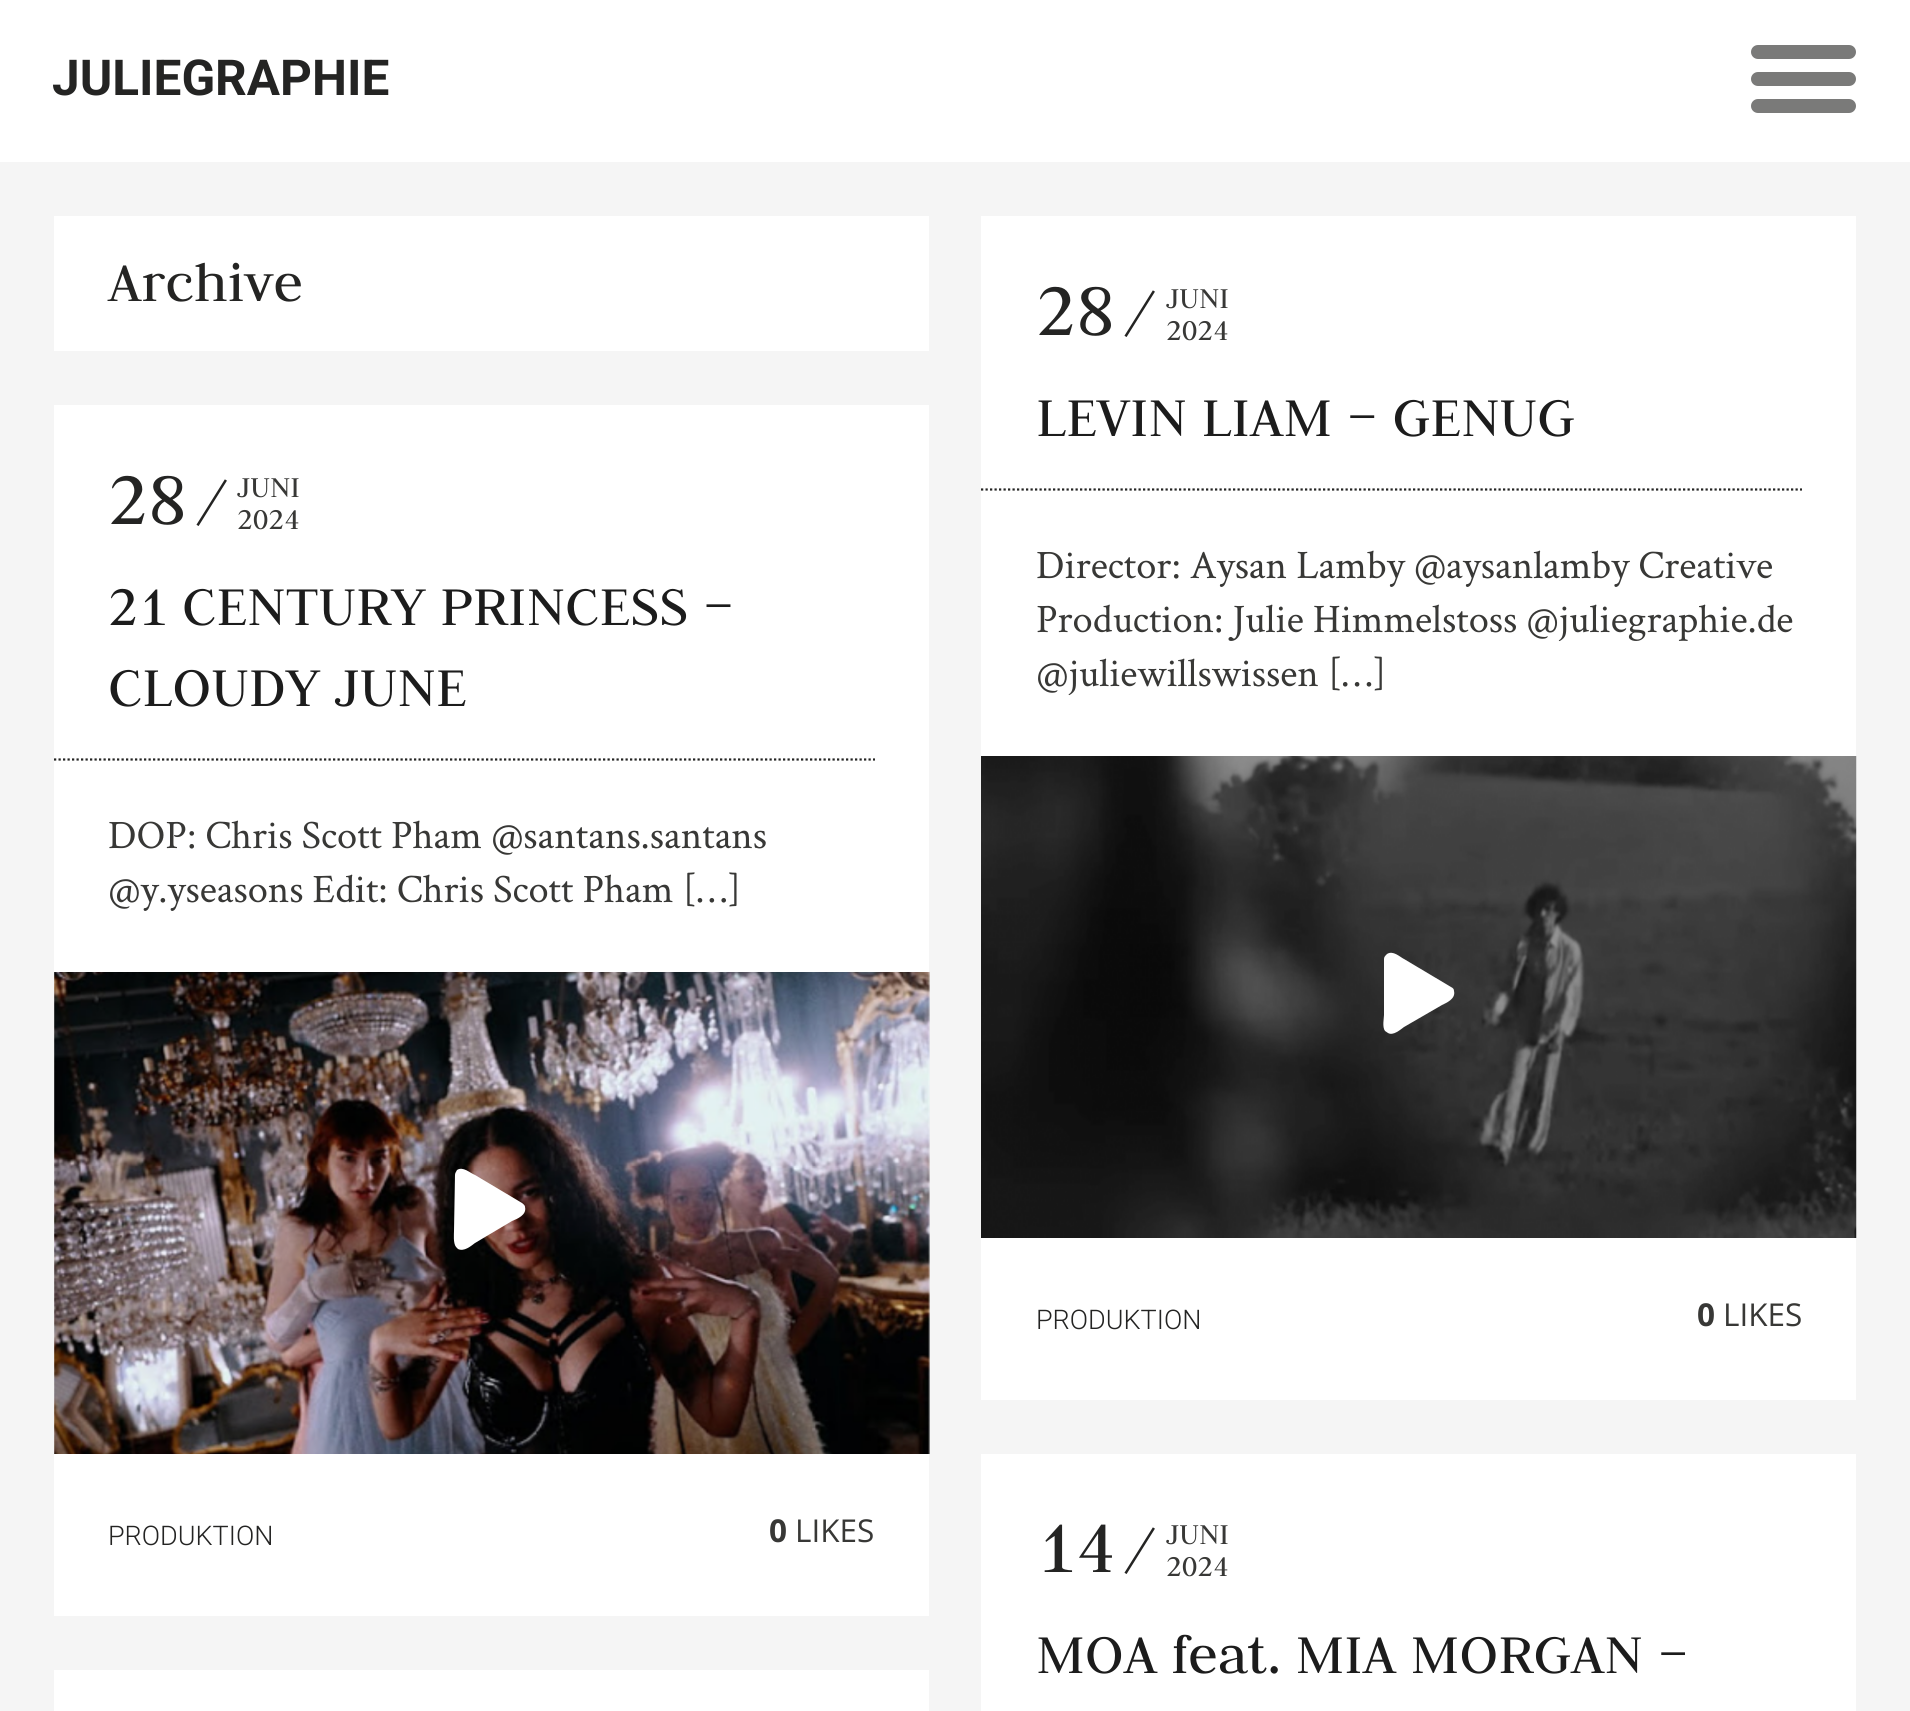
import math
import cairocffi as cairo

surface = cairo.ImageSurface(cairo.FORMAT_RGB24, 1910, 1711)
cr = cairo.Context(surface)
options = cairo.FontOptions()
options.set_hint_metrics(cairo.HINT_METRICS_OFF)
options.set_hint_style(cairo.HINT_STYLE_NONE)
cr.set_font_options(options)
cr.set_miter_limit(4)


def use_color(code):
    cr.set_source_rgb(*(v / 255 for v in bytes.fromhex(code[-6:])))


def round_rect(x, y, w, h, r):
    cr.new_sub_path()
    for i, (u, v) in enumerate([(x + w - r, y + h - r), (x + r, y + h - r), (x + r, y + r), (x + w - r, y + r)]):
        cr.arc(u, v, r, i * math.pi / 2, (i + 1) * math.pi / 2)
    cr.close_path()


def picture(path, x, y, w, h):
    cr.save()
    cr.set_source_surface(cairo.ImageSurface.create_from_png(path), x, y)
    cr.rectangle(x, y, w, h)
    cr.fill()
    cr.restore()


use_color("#ffffff")
cr.paint()
cr.select_font_face("Roboto", cairo.FONT_SLANT_NORMAL, cairo.FONT_WEIGHT_BOLD)
cr.set_font_size(49.5)
use_color("#242423")
cr.move_to(52, 95)
cr.show_text("JULIEGRAPHIE")
use_color("#7a7a79")
round_rect(1751, 72, 105, 14, 7)
cr.fill()
round_rect(1751, 45, 105, 14, 7)
cr.fill()
round_rect(1751, 99, 105, 14, 7)
cr.fill()
use_color("#f5f5f5")
cr.rectangle(0, 162, 1910, 1549)
cr.fill()
use_color("#ffffff")
cr.rectangle(54, 216, 875, 135)
cr.fill()
cr.select_font_face("Judson")
cr.set_font_size(60.75)
use_color("#242423")
cr.move_to(108, 301)
cr.show_text("Archive")
use_color("#ffffff")
cr.rectangle(54, 405, 875, 1211)
cr.fill()
cr.set_font_size(81)
use_color("#242423")
cr.move_to(108, 524)
cr.show_text("28")
cr.set_font_size(73)
cr.move_to(195, 524)
cr.show_text("/")
cr.set_font_size(32)
use_color("#383836")
cr.move_to(237, 497)
cr.show_text("JUNI")
cr.move_to(237, 529)
cr.show_text("2024")
cr.set_font_size(60.75)
use_color("#1c1c1c")
cr.move_to(108, 625)
cr.show_text("21 CENTURY PRINCESS –")
cr.move_to(108, 706)
cr.show_text("CLOUDY JUNE")
cr.new_path()
cr.move_to(54, 759.5)
cr.line_to(875, 759.5)
use_color("#242423")
cr.set_line_width(2.2)
cr.set_dash([2.25, 2.25])
cr.stroke()
cr.select_font_face("Crimson Text")
cr.set_font_size(40.5)
use_color("#383836")
cr.move_to(108, 848)
cr.show_text("DOP: Chris Scott Pham @santans.santans")
cr.move_to(108, 902)
cr.show_text("@y.yseasons Edit: Chris Scott Pham […]")
picture("img1.png", 54, 972, 876, 482)
use_color("#ffffff")
cr.new_path()
cr.move_to(522, 1203)
cr.line_to(475, 1175)
cr.curve_to(470, 1173, 463, 1166, 457, 1170)
cr.curve_to(456, 1172, 455, 1173, 455, 1175)
cr.line_to(454, 1231)
cr.curve_to(454, 1234, 453, 1243, 456, 1247)
cr.line_to(458, 1249)
cr.curve_to(464, 1252, 471, 1246, 475, 1243)
cr.line_to(512, 1221)
cr.curve_to(517, 1219, 527, 1215, 525, 1207)
cr.curve_to(525, 1205, 523, 1204, 522, 1203)
cr.close_path()
cr.fill()
cr.select_font_face("Roboto Light")
cr.set_font_size(27)
use_color("#242423")
cr.move_to(108, 1545)
cr.show_text("PRODUKTION")
cr.select_font_face("Open Sans", cairo.FONT_SLANT_NORMAL, cairo.FONT_WEIGHT_BOLD)
cr.set_font_size(31.5)
use_color("#383836")
cr.move_to(769, 1542)
cr.show_text("0")
cr.select_font_face("Open Sans")
cr.move_to(795, 1542)
cr.show_text("LIKES")
use_color("#ffffff")
cr.rectangle(54, 1670, 875, 41)
cr.fill()
cr.rectangle(981, 216, 875, 1184)
cr.fill()
cr.select_font_face("Judson")
cr.set_font_size(81)
use_color("#242423")
cr.move_to(1036, 335)
cr.show_text("28")
cr.set_font_size(73)
cr.move_to(1123, 335)
cr.show_text("/")
cr.set_font_size(32)
use_color("#383836")
cr.move_to(1166, 308)
cr.show_text("JUNI")
cr.move_to(1166, 340)
cr.show_text("2024")
cr.set_font_size(60.75)
use_color("#1c1c1c")
cr.move_to(1036, 436)
cr.show_text("LEVIN LIAM – GENUG")
cr.new_path()
cr.move_to(981, 489.5)
cr.line_to(1802, 489.5)
use_color("#242423")
cr.stroke()
cr.select_font_face("Crimson Text")
cr.set_font_size(40.5)
use_color("#383836")
cr.move_to(1036, 578)
cr.show_text("Director: Aysan Lamby @aysanlamby Creative")
cr.move_to(1036, 632)
cr.show_text("Production: Julie Himmelstoss @juliegraphie.de")
cr.move_to(1036, 686)
cr.show_text("@juliewillswissen […]")
picture("img2.png", 981, 756, 876, 482)
use_color("#ffffff")
cr.new_path()
cr.move_to(1451, 987)
cr.line_to(1404, 959)
cr.curve_to(1400, 957, 1393, 950, 1387, 954)
cr.curve_to(1385, 956, 1384, 957, 1384, 959)
cr.line_to(1384, 1015)
cr.curve_to(1384, 1018, 1382, 1027, 1385, 1031)
cr.line_to(1388, 1033)
cr.curve_to(1393, 1036, 1400, 1030, 1404, 1027)
cr.line_to(1442, 1005)
cr.curve_to(1446, 1003, 1456, 999, 1454, 991)
cr.curve_to(1454, 989, 1453, 988, 1451, 987)
cr.close_path()
cr.fill()
cr.select_font_face("Roboto Light")
cr.set_font_size(27)
use_color("#242423")
cr.move_to(1036, 1329)
cr.show_text("PRODUKTION")
cr.select_font_face("Open Sans", cairo.FONT_SLANT_NORMAL, cairo.FONT_WEIGHT_BOLD)
cr.set_font_size(31.5)
use_color("#383836")
cr.move_to(1697, 1326)
cr.show_text("0")
cr.select_font_face("Open Sans")
cr.move_to(1723, 1326)
cr.show_text("LIKES")
use_color("#ffffff")
cr.rectangle(981, 1454, 875, 257)
cr.fill()
cr.select_font_face("Judson")
cr.set_font_size(81)
use_color("#242423")
cr.move_to(1036, 1572)
cr.show_text("14")
cr.set_font_size(73)
cr.move_to(1123, 1572)
cr.show_text("/")
cr.set_font_size(32)
use_color("#383836")
cr.move_to(1166, 1544)
cr.show_text("JUNI")
cr.move_to(1166, 1576)
cr.show_text("2024")
cr.set_font_size(60.75)
use_color("#1c1c1c")
cr.move_to(1036, 1673)
cr.show_text("MOA feat. MIA MORGAN –")
surface.write_to_png("result.png")
